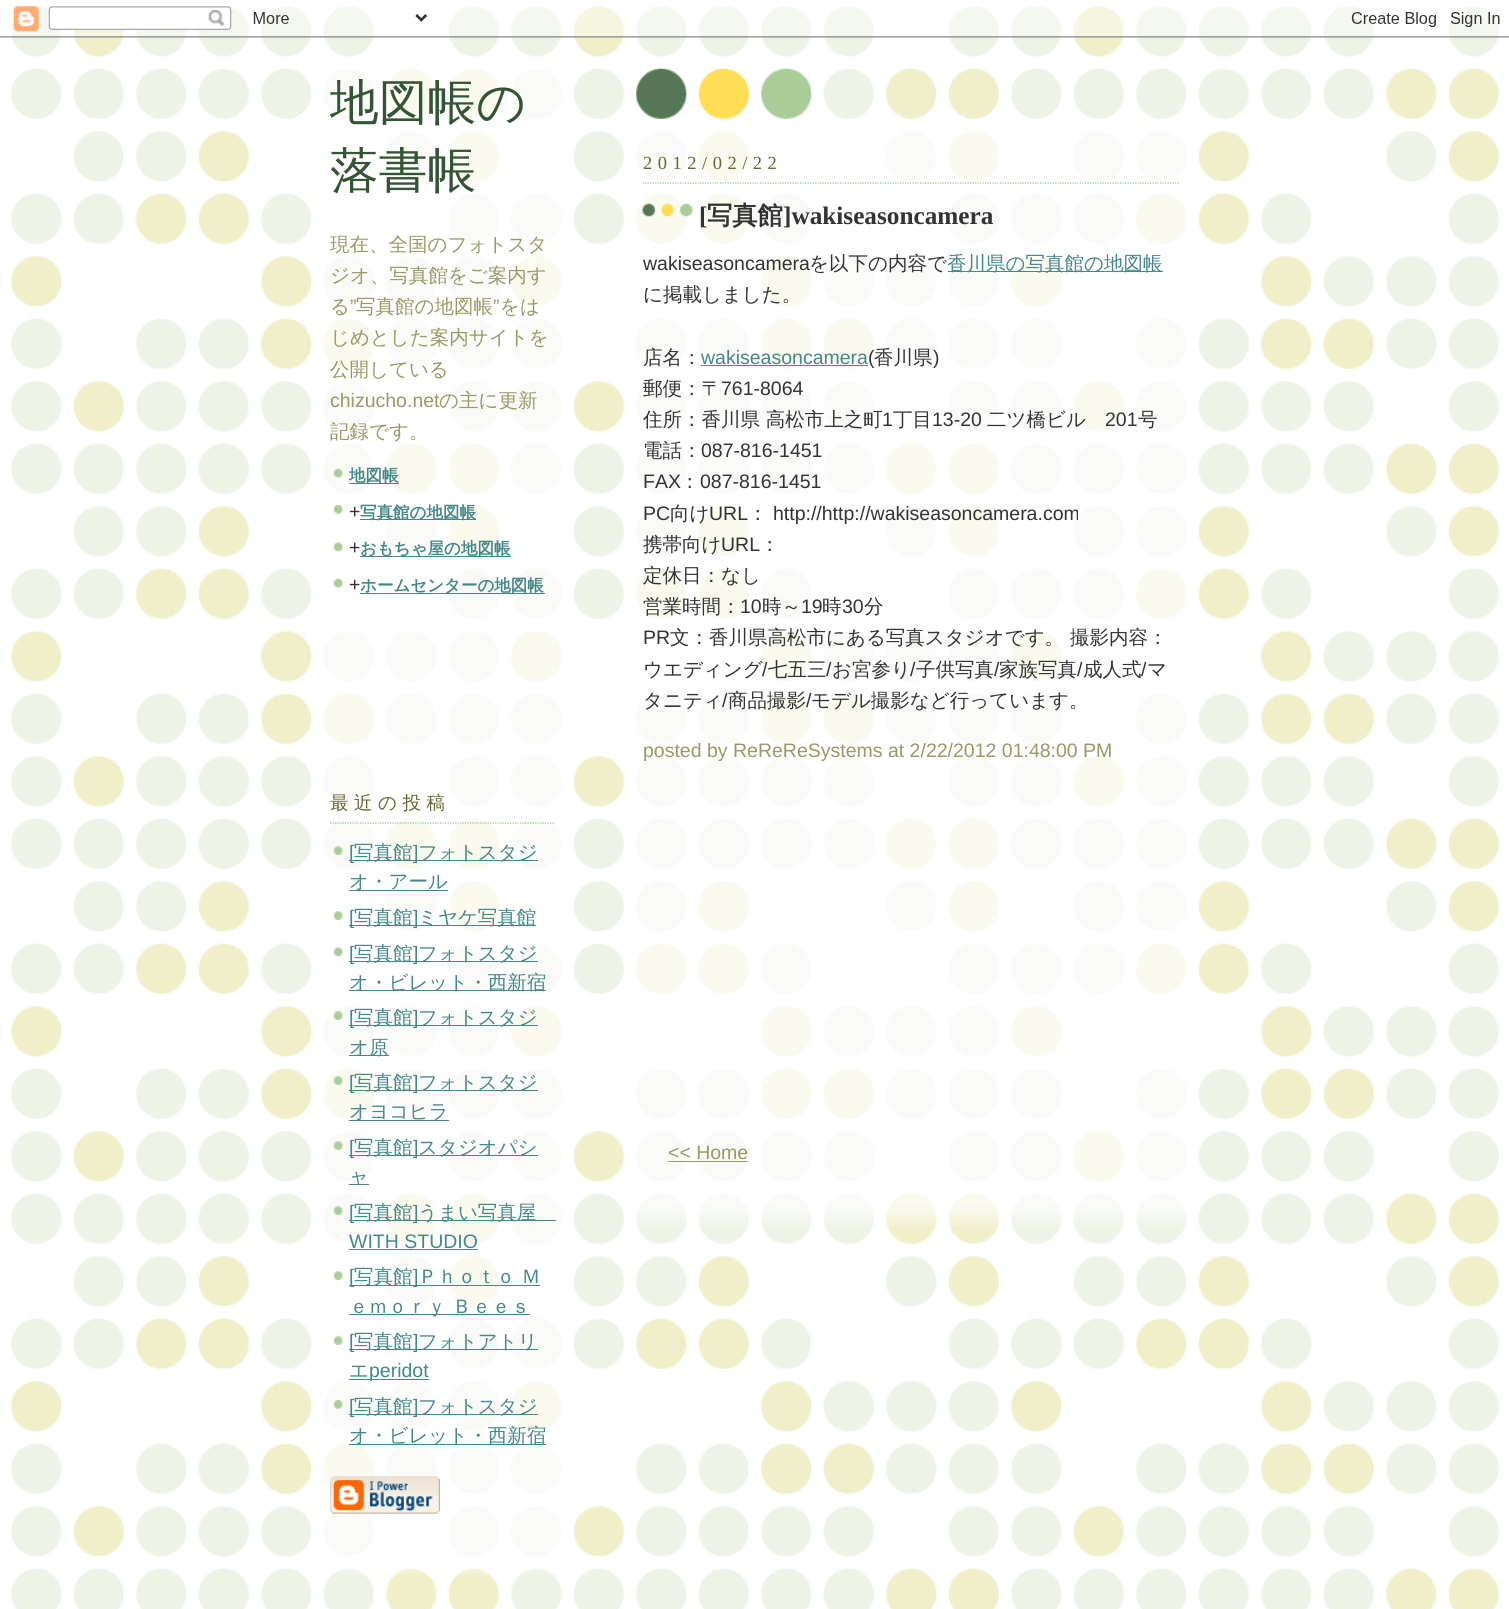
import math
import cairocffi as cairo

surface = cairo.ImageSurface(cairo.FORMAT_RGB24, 1509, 1609)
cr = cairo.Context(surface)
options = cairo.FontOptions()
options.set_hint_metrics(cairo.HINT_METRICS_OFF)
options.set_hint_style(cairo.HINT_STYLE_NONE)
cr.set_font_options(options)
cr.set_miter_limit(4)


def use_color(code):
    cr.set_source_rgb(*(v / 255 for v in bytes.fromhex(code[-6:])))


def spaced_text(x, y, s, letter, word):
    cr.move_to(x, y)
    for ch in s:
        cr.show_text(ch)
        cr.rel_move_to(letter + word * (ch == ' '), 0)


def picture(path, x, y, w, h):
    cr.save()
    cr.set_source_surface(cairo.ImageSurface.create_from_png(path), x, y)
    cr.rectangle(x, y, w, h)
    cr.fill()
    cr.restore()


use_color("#ffffff")
cr.paint()
picture("img1.png", 11, 6, 1488, 1603)
picture("img2.png", 0, 6, 1509, 32)
picture("img3.png", 635, 68, 177, 52)
picture("img4.png", 338, 1555, 209, 21)
picture("img5.png", 323, 68, 239, 1487)
cr.select_font_face("WenQuanYi Zen Hei Medium")
cr.set_font_size(48.75)
use_color("#335533")
cr.move_to(330, 119)
cr.show_text("地図帳の")
cr.move_to(330, 187)
cr.show_text("落書帳")
cr.set_font_size(19.5)
use_color("#999966")
cr.move_to(330, 251)
cr.show_text("現在、全国のフォトスタ")
cr.move_to(330, 282)
cr.show_text("ジオ、写真館をご案内す")
cr.move_to(330, 313)
cr.show_text("る")
cr.select_font_face("Liberation Sans")
cr.move_to(350, 313)
cr.show_text("”")
cr.select_font_face("WenQuanYi Zen Hei Medium")
cr.move_to(356, 313)
cr.show_text("写真館の地図帳")
cr.select_font_face("Liberation Sans")
cr.move_to(493, 313)
cr.show_text("”")
cr.select_font_face("WenQuanYi Zen Hei Medium")
cr.move_to(500, 313)
cr.show_text("をは")
cr.move_to(330, 344)
cr.show_text("じめとした案内サイトを")
cr.move_to(330, 376)
cr.show_text("公開している")
cr.select_font_face("Liberation Sans")
cr.move_to(330, 407)
cr.show_text("chizucho.net")
cr.select_font_face("WenQuanYi Zen Hei Medium")
cr.move_to(439, 407)
cr.show_text("の主に更新")
cr.move_to(330, 438)
cr.show_text("記録です。")
picture("img6.png", 333, 468, 10, 10)
use_color("#448888")
cr.rectangle(349, 483, 50, 1)
cr.fill()
cr.select_font_face("WenQuanYi Zen Hei", cairo.FONT_SLANT_NORMAL, cairo.FONT_WEIGHT_BOLD)
cr.set_font_size(16.5)
cr.move_to(349, 481)
cr.show_text("地図帳")
picture("img7.png", 333, 505, 10, 9)
cr.select_font_face("Liberation Sans")
cr.set_font_size(19.5)
use_color("#333333")
cr.move_to(349, 518)
cr.show_text("+")
use_color("#448888")
cr.rectangle(360, 519, 116, 1)
cr.fill()
cr.select_font_face("WenQuanYi Zen Hei", cairo.FONT_SLANT_NORMAL, cairo.FONT_WEIGHT_BOLD)
cr.set_font_size(16.5)
cr.move_to(360, 518)
cr.show_text("写真館の地図帳")
picture("img8.png", 333, 542, 10, 10)
cr.select_font_face("Liberation Sans")
cr.set_font_size(19.5)
use_color("#333333")
cr.move_to(349, 554)
cr.show_text("+")
use_color("#448888")
cr.rectangle(360, 556, 151, 1)
cr.fill()
cr.select_font_face("WenQuanYi Zen Hei", cairo.FONT_SLANT_NORMAL, cairo.FONT_WEIGHT_BOLD)
cr.set_font_size(16.5)
cr.move_to(360, 554)
cr.show_text("おもちゃ屋の地図帳")
picture("img9.png", 333, 578, 10, 10)
cr.select_font_face("Liberation Sans")
cr.set_font_size(19.5)
use_color("#333333")
cr.move_to(349, 591)
cr.show_text("+")
use_color("#448888")
cr.rectangle(360, 593, 185, 1)
cr.fill()
cr.select_font_face("WenQuanYi Zen Hei", cairo.FONT_SLANT_NORMAL, cairo.FONT_WEIGHT_BOLD)
cr.set_font_size(16.5)
cr.move_to(360, 591)
cr.show_text("ホームセンターの地図帳")
cr.new_path()
cr.move_to(330, 823)
cr.line_to(555, 823)
use_color("#99bb99")
cr.set_line_width(1.2)
cr.set_dash([1.25, 1.25])
cr.stroke()
cr.select_font_face("WenQuanYi Zen Hei Medium")
cr.set_font_size(18.5)
use_color("#666633")
spaced_text(330, 809, "最近の投稿", 5.5, 0)
picture("img10.png", 333, 846, 10, 9)
use_color("#448888")
cr.rectangle(349, 860, 189, 1)
cr.fill()
cr.select_font_face("Liberation Sans")
cr.set_font_size(19.5)
cr.move_to(349, 859)
cr.show_text("[")
cr.select_font_face("WenQuanYi Zen Hei Medium")
cr.move_to(354, 859)
cr.show_text("写真館")
cr.select_font_face("Liberation Sans")
cr.move_to(413, 859)
cr.show_text("]")
cr.select_font_face("WenQuanYi Zen Hei Medium")
cr.move_to(418, 859)
cr.show_text("フォトスタジ")
cr.rectangle(349, 890, 99, 1)
cr.fill()
cr.move_to(349, 888)
cr.show_text("オ・アール")
picture("img11.png", 333, 911, 10, 9)
cr.rectangle(349, 925, 187, 1)
cr.fill()
cr.select_font_face("Liberation Sans")
cr.move_to(349, 924)
cr.show_text("[")
cr.select_font_face("WenQuanYi Zen Hei Medium")
cr.move_to(354, 924)
cr.show_text("写真館")
cr.select_font_face("Liberation Sans")
cr.move_to(413, 924)
cr.show_text("]")
cr.select_font_face("WenQuanYi Zen Hei Medium")
cr.move_to(418, 924)
cr.show_text("ミヤケ写真館")
picture("img8.png", 333, 947, 10, 10)
cr.rectangle(349, 961, 189, 1)
cr.fill()
cr.select_font_face("Liberation Sans")
cr.move_to(349, 960)
cr.show_text("[")
cr.select_font_face("WenQuanYi Zen Hei Medium")
cr.move_to(354, 960)
cr.show_text("写真館")
cr.select_font_face("Liberation Sans")
cr.move_to(413, 960)
cr.show_text("]")
cr.select_font_face("WenQuanYi Zen Hei Medium")
cr.move_to(418, 960)
cr.show_text("フォトスタジ")
cr.rectangle(349, 990, 197, 1)
cr.fill()
cr.move_to(349, 989)
cr.show_text("オ・ビレット・西新宿")
picture("img12.png", 333, 1011, 10, 9)
cr.rectangle(349, 1025, 189, 1)
cr.fill()
cr.select_font_face("Liberation Sans")
cr.move_to(349, 1024)
cr.show_text("[")
cr.select_font_face("WenQuanYi Zen Hei Medium")
cr.move_to(354, 1024)
cr.show_text("写真館")
cr.select_font_face("Liberation Sans")
cr.move_to(413, 1024)
cr.show_text("]")
cr.select_font_face("WenQuanYi Zen Hei Medium")
cr.move_to(418, 1024)
cr.show_text("フォトスタジ")
cr.rectangle(349, 1055, 40, 1)
cr.fill()
cr.move_to(349, 1054)
cr.show_text("オ原")
picture("img13.png", 333, 1076, 10, 9)
cr.rectangle(349, 1090, 189, 1)
cr.fill()
cr.select_font_face("Liberation Sans")
cr.move_to(349, 1089)
cr.show_text("[")
cr.select_font_face("WenQuanYi Zen Hei Medium")
cr.move_to(354, 1089)
cr.show_text("写真館")
cr.select_font_face("Liberation Sans")
cr.move_to(413, 1089)
cr.show_text("]")
cr.select_font_face("WenQuanYi Zen Hei Medium")
cr.move_to(418, 1089)
cr.show_text("フォトスタジ")
cr.rectangle(349, 1120, 100, 1)
cr.fill()
cr.move_to(349, 1118)
cr.show_text("オヨコヒラ")
picture("img10.png", 333, 1141, 10, 9)
cr.rectangle(349, 1155, 189, 1)
cr.fill()
cr.select_font_face("Liberation Sans")
cr.move_to(349, 1154)
cr.show_text("[")
cr.select_font_face("WenQuanYi Zen Hei Medium")
cr.move_to(354, 1154)
cr.show_text("写真館")
cr.select_font_face("Liberation Sans")
cr.move_to(413, 1154)
cr.show_text("]")
cr.select_font_face("WenQuanYi Zen Hei Medium")
cr.move_to(418, 1154)
cr.show_text("スタジオパシ")
cr.rectangle(349, 1184, 20, 1)
cr.fill()
cr.move_to(349, 1183)
cr.show_text("ャ")
picture("img10.png", 333, 1206, 10, 9)
cr.rectangle(349, 1220, 207, 1)
cr.fill()
cr.select_font_face("Liberation Sans")
cr.move_to(349, 1219)
cr.show_text("[")
cr.select_font_face("WenQuanYi Zen Hei Medium")
cr.move_to(354, 1219)
cr.show_text("写真館")
cr.select_font_face("Liberation Sans")
cr.move_to(413, 1219)
cr.show_text("]")
cr.select_font_face("WenQuanYi Zen Hei Medium")
cr.move_to(418, 1219)
cr.show_text("うまい写真屋")
cr.select_font_face("Liberation Sans")
cr.move_to(349, 1248)
cr.show_text("WITH STUDIO")
cr.rectangle(349, 1249, 129, 1)
cr.fill()
picture("img11.png", 333, 1271, 10, 9)
cr.rectangle(349, 1285, 191, 1)
cr.fill()
cr.move_to(349, 1283)
cr.show_text("[")
cr.select_font_face("WenQuanYi Zen Hei Medium")
cr.move_to(354, 1283)
cr.show_text("写真館")
cr.select_font_face("Liberation Sans")
cr.move_to(413, 1283)
cr.show_text("]")
cr.select_font_face("WenQuanYi Zen Hei Medium")
cr.move_to(418, 1283)
cr.show_text("Ｐｈｏｔｏ Ｍ")
cr.rectangle(349, 1314, 181, 1)
cr.fill()
cr.move_to(349, 1313)
cr.show_text("ｅｍｏｒｙ Ｂｅｅｓ")
picture("img11.png", 333, 1336, 10, 9)
cr.rectangle(349, 1349, 189, 1)
cr.fill()
cr.select_font_face("Liberation Sans")
cr.move_to(349, 1348)
cr.show_text("[")
cr.select_font_face("WenQuanYi Zen Hei Medium")
cr.move_to(354, 1348)
cr.show_text("写真館")
cr.select_font_face("Liberation Sans")
cr.move_to(413, 1348)
cr.show_text("]")
cr.select_font_face("WenQuanYi Zen Hei Medium")
cr.move_to(418, 1348)
cr.show_text("フォトアトリ")
cr.move_to(349, 1377)
cr.show_text("エ")
cr.rectangle(349, 1379, 80, 1)
cr.fill()
cr.select_font_face("Liberation Sans")
cr.move_to(369, 1377)
cr.show_text("peridot")
picture("img14.png", 333, 1400, 10, 9)
cr.rectangle(349, 1414, 189, 1)
cr.fill()
cr.move_to(349, 1413)
cr.show_text("[")
cr.select_font_face("WenQuanYi Zen Hei Medium")
cr.move_to(354, 1413)
cr.show_text("写真館")
cr.select_font_face("Liberation Sans")
cr.move_to(413, 1413)
cr.show_text("]")
cr.select_font_face("WenQuanYi Zen Hei Medium")
cr.move_to(418, 1413)
cr.show_text("フォトスタジ")
cr.rectangle(349, 1444, 197, 1)
cr.fill()
cr.move_to(349, 1442)
cr.show_text("オ・ビレット・西新宿")
picture("img15.png", 330, 1476, 110, 38)
picture("img16.png", 636, 1207, 550, 21)
picture("img17.png", 636, 131, 551, 1077)
cr.new_path()
cr.move_to(642.5, 183)
cr.line_to(1180, 183)
use_color("#99bb99")
cr.stroke()
cr.select_font_face("Liberation Serif")
cr.set_font_size(18.5)
use_color("#666633")
spaced_text(643, 169, "2012/02/22", 5.5, 0)
picture("img18.png", 642, 203, 51, 14)
cr.select_font_face("Liberation Serif", cairo.FONT_SLANT_NORMAL, cairo.FONT_WEIGHT_BOLD)
cr.set_font_size(25.25)
use_color("#333333")
cr.move_to(699, 224)
cr.show_text("[")
cr.select_font_face("WenQuanYi Zen Hei", cairo.FONT_SLANT_NORMAL, cairo.FONT_WEIGHT_BOLD)
cr.move_to(707, 224)
cr.show_text("写真館")
cr.select_font_face("Liberation Serif", cairo.FONT_SLANT_NORMAL, cairo.FONT_WEIGHT_BOLD)
cr.move_to(783, 224)
cr.show_text("]wakiseasoncamera")
cr.select_font_face("Liberation Sans")
cr.set_font_size(19.5)
cr.move_to(643, 270)
cr.show_text("wakiseasoncamera")
cr.select_font_face("WenQuanYi Zen Hei Medium")
cr.move_to(809, 270)
cr.show_text("を以下の内容で")
use_color("#448888")
cr.rectangle(948, 271, 215, 1)
cr.fill()
cr.move_to(947, 270)
cr.show_text("香川県の写真館の地図帳")
use_color("#333333")
cr.move_to(643, 301)
cr.show_text("に掲載しました。")
cr.move_to(643, 364)
cr.show_text("店名：")
cr.select_font_face("Liberation Sans")
use_color("#448888")
cr.move_to(701, 364)
cr.show_text("wakiseasoncamera")
cr.rectangle(701, 365, 167, 1)
cr.fill()
use_color("#333333")
cr.move_to(868, 364)
cr.show_text("(")
cr.select_font_face("WenQuanYi Zen Hei Medium")
cr.move_to(874, 364)
cr.show_text("香川県")
cr.select_font_face("Liberation Sans")
cr.move_to(933, 364)
cr.show_text(")")
cr.select_font_face("WenQuanYi Zen Hei Medium")
cr.move_to(643, 395)
cr.show_text("郵便：〒")
cr.select_font_face("Liberation Sans")
cr.move_to(721, 395)
cr.show_text("761-8064")
cr.select_font_face("WenQuanYi Zen Hei Medium")
cr.move_to(643, 426)
cr.show_text("住所：香川県 高松市上之町")
cr.select_font_face("Liberation Sans")
cr.move_to(882, 426)
cr.show_text("1")
cr.select_font_face("WenQuanYi Zen Hei Medium")
cr.move_to(893, 426)
cr.show_text("丁目")
cr.select_font_face("Liberation Sans")
cr.move_to(932, 426)
cr.show_text("13-20")
cr.select_font_face("WenQuanYi Zen Hei Medium")
cr.move_to(987, 426)
cr.show_text("二ツ橋ビル")
cr.select_font_face("Liberation Sans")
cr.move_to(1105, 426)
cr.show_text("201")
cr.select_font_face("WenQuanYi Zen Hei Medium")
cr.move_to(1138, 426)
cr.show_text("号")
cr.move_to(643, 457)
cr.show_text("電話：")
cr.select_font_face("Liberation Sans")
cr.move_to(701, 457)
cr.show_text("087-816-1451")
cr.move_to(643, 488)
cr.show_text("FAX")
cr.select_font_face("WenQuanYi Zen Hei Medium")
cr.move_to(680, 488)
cr.show_text("：")
cr.select_font_face("Liberation Sans")
cr.move_to(700, 488)
cr.show_text("087-816-1451")
cr.move_to(643, 520)
cr.show_text("PC")
cr.select_font_face("WenQuanYi Zen Hei Medium")
cr.move_to(670, 520)
cr.show_text("向け")
cr.select_font_face("Liberation Sans")
cr.move_to(709, 520)
cr.show_text("URL")
cr.select_font_face("WenQuanYi Zen Hei Medium")
cr.move_to(748, 520)
cr.show_text("：")
cr.select_font_face("Liberation Sans")
cr.move_to(773, 520)
cr.show_text("http://http://wakiseasoncamera.com")
cr.select_font_face("WenQuanYi Zen Hei Medium")
cr.move_to(643, 551)
cr.show_text("携帯向け")
cr.select_font_face("Liberation Sans")
cr.move_to(721, 551)
cr.show_text("URL")
cr.select_font_face("WenQuanYi Zen Hei Medium")
cr.move_to(760, 551)
cr.show_text("：")
cr.move_to(643, 582)
cr.show_text("定休日：なし")
cr.move_to(643, 613)
cr.show_text("営業時間：")
cr.select_font_face("Liberation Sans")
cr.move_to(740, 613)
cr.show_text("10")
cr.select_font_face("WenQuanYi Zen Hei Medium")
cr.move_to(762, 613)
cr.show_text("時～")
cr.select_font_face("Liberation Sans")
cr.move_to(801, 613)
cr.show_text("19")
cr.select_font_face("WenQuanYi Zen Hei Medium")
cr.move_to(822, 613)
cr.show_text("時")
cr.select_font_face("Liberation Sans")
cr.move_to(842, 613)
cr.show_text("30")
cr.select_font_face("WenQuanYi Zen Hei Medium")
cr.move_to(864, 613)
cr.show_text("分")
cr.select_font_face("Liberation Sans")
cr.move_to(643, 644)
cr.show_text("PR")
cr.select_font_face("WenQuanYi Zen Hei Medium")
cr.move_to(670, 644)
cr.show_text("文：香川県高松市にある写真スタジオです。 撮影内容：")
cr.move_to(643, 676)
cr.show_text("ウエディング")
cr.select_font_face("Liberation Sans")
cr.move_to(762, 676)
cr.show_text("/")
cr.select_font_face("WenQuanYi Zen Hei Medium")
cr.move_to(768, 676)
cr.show_text("七五三")
cr.select_font_face("Liberation Sans")
cr.move_to(826, 676)
cr.show_text("/")
cr.select_font_face("WenQuanYi Zen Hei Medium")
cr.move_to(832, 676)
cr.show_text("お宮参り")
cr.select_font_face("Liberation Sans")
cr.move_to(910, 676)
cr.show_text("/")
cr.select_font_face("WenQuanYi Zen Hei Medium")
cr.move_to(916, 676)
cr.show_text("子供写真")
cr.select_font_face("Liberation Sans")
cr.move_to(994, 676)
cr.show_text("/")
cr.select_font_face("WenQuanYi Zen Hei Medium")
cr.move_to(999, 676)
cr.show_text("家族写真")
cr.select_font_face("Liberation Sans")
cr.move_to(1077, 676)
cr.show_text("/")
cr.select_font_face("WenQuanYi Zen Hei Medium")
cr.move_to(1083, 676)
cr.show_text("成人式")
cr.select_font_face("Liberation Sans")
cr.move_to(1141, 676)
cr.show_text("/")
cr.select_font_face("WenQuanYi Zen Hei Medium")
cr.move_to(1147, 676)
cr.show_text("マ")
cr.move_to(643, 707)
cr.show_text("タニティ")
cr.select_font_face("Liberation Sans")
cr.move_to(722, 707)
cr.show_text("/")
cr.select_font_face("WenQuanYi Zen Hei Medium")
cr.move_to(728, 707)
cr.show_text("商品撮影")
cr.select_font_face("Liberation Sans")
cr.move_to(806, 707)
cr.show_text("/")
cr.select_font_face("WenQuanYi Zen Hei Medium")
cr.move_to(811, 707)
cr.show_text("モデル撮影など行っています。")
cr.select_font_face("Liberation Sans")
use_color("#999966")
cr.move_to(643, 757)
cr.show_text("posted by ReReReSystems at 2/22/2012 01:48:00 PM")
cr.move_to(668, 1159)
cr.show_text("<< Home")
cr.rectangle(668, 1161, 80, 1)
cr.fill()
surface.write_to_png("result.png")
